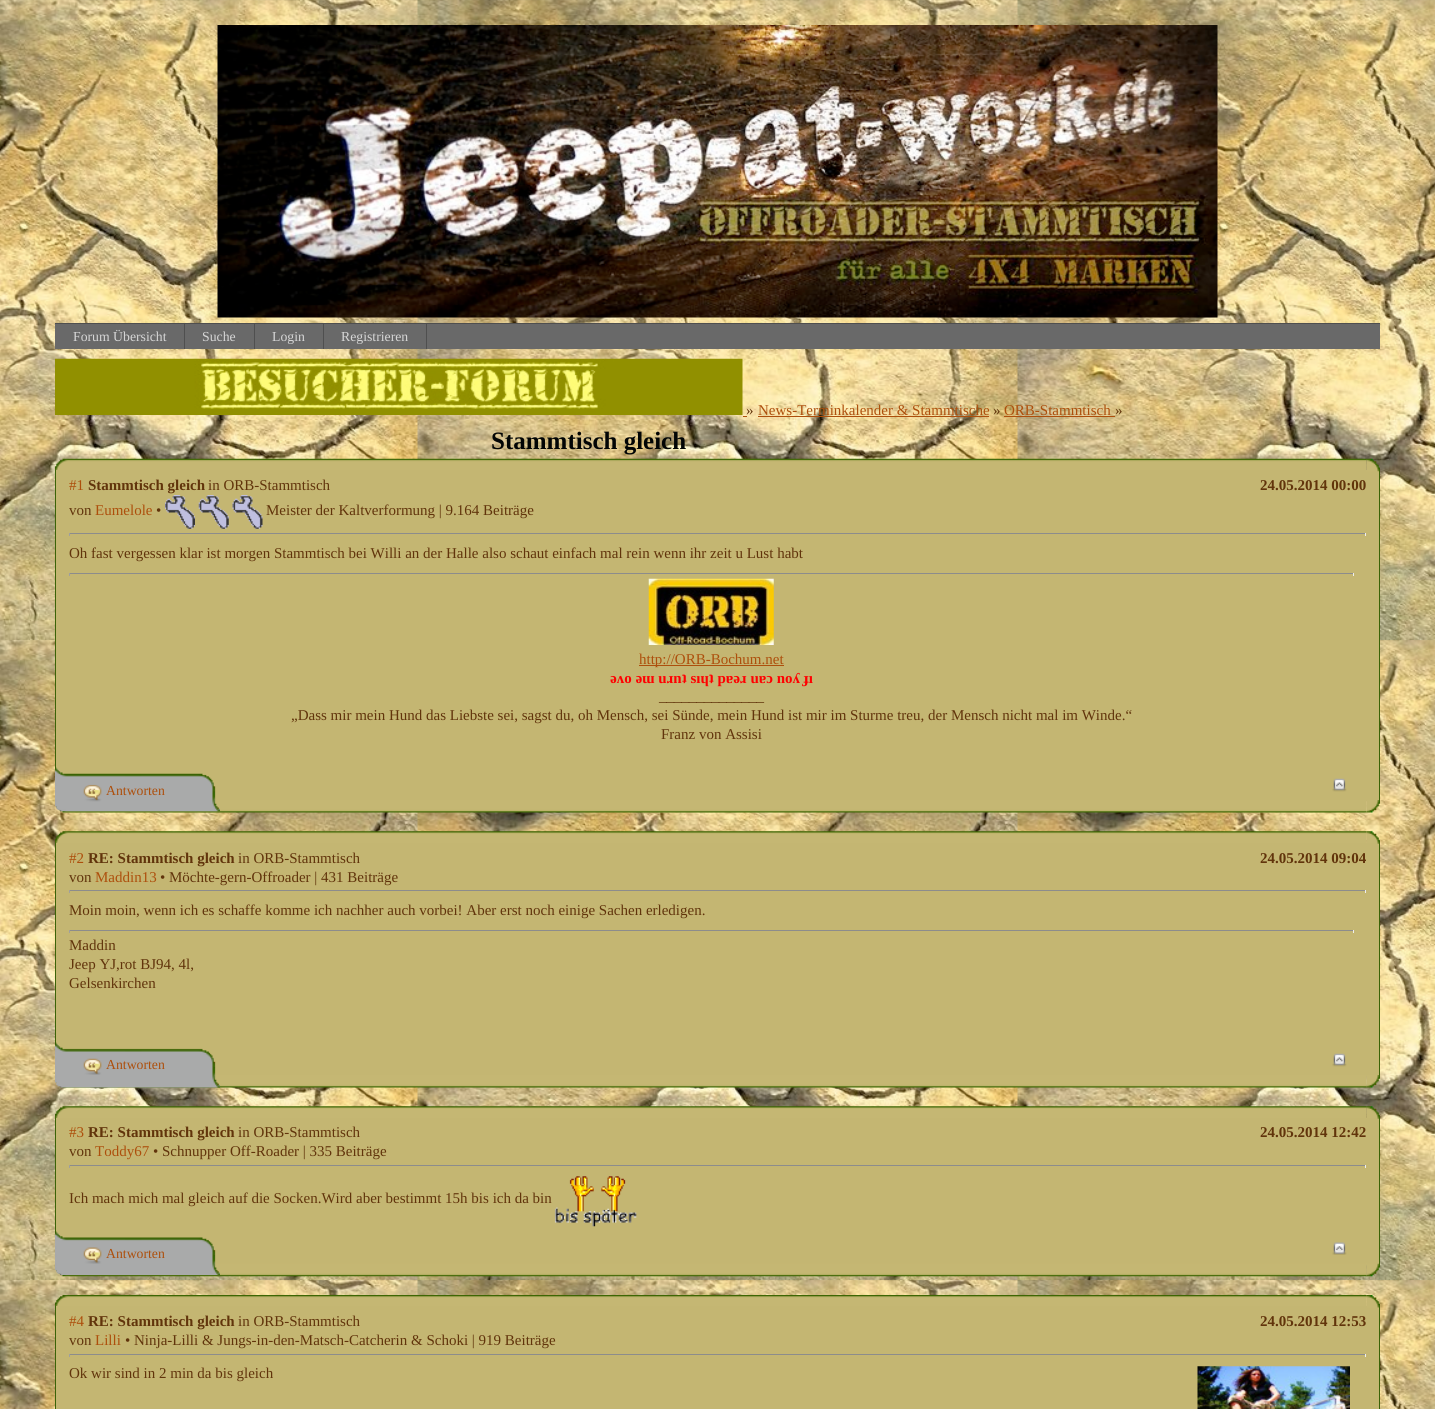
import math
import cairocffi as cairo

surface = cairo.ImageSurface(cairo.FORMAT_RGB24, 1435, 1409)
cr = cairo.Context(surface)
options = cairo.FontOptions()
options.set_hint_metrics(cairo.HINT_METRICS_OFF)
options.set_hint_style(cairo.HINT_STYLE_NONE)
cr.set_font_options(options)
cr.set_miter_limit(4)


def use_color(code):
    cr.set_source_rgb(*(v / 255 for v in bytes.fromhex(code[-6:])))


def picture(path, x, y, w, h):
    cr.save()
    cr.set_source_surface(cairo.ImageSurface.create_from_png(path), x, y)
    cr.rectangle(x, y, w, h)
    cr.fill()
    cr.restore()


use_color("#ffffff")
cr.paint()
picture("img1.png", 0, 0, 1435, 1409)
picture("img2.png", 217, 25, 1001, 293)
use_color("#696969")
cr.rectangle(55, 324, 1325, 25)
cr.fill()
use_color("#4f4f4f")
cr.rectangle(55, 323, 1325, 1)
cr.fill()
cr.rectangle(184, 324, 1, 25)
cr.fill()
cr.select_font_face("Liberation Serif")
cr.set_font_size(13.75)
use_color("#d6d6d6")
cr.move_to(73, 341)
cr.show_text("Forum Übersicht")
use_color("#4f4f4f")
cr.rectangle(254, 324, 1, 25)
cr.fill()
use_color("#d6d6d6")
cr.move_to(202, 341)
cr.show_text("Suche")
use_color("#4f4f4f")
cr.rectangle(323, 324, 1, 25)
cr.fill()
use_color("#d6d6d6")
cr.move_to(272, 341)
cr.show_text("Login")
use_color("#4f4f4f")
cr.rectangle(426, 324, 1, 25)
cr.fill()
use_color("#d6d6d6")
cr.move_to(341, 341)
cr.show_text("Registrieren")
picture("img3.png", 55, 358, 688, 57)
cr.set_font_size(15)
use_color("#61340b")
cr.move_to(746, 415)
cr.show_text("»")
use_color("#ad4f0c")
cr.move_to(758, 415)
cr.show_text("News-Terminkalender & Stammtische")
cr.rectangle(758, 416, 231, 1)
cr.fill()
use_color("#61340b")
cr.move_to(993, 415)
cr.show_text("»")
use_color("#ad4f0c")
cr.move_to(1004, 415)
cr.show_text("ORB-Stammtisch")
use_color("#61340b")
cr.move_to(1115, 415)
cr.show_text("»")
use_color("#ad4f0c")
cr.rectangle(1004, 416, 111, 1)
cr.fill()
cr.rectangle(743, 416, 4, 1)
cr.fill()
cr.select_font_face("Liberation Serif", cairo.FONT_SLANT_NORMAL, cairo.FONT_WEIGHT_BOLD)
cr.set_font_size(25)
use_color("#020505")
cr.move_to(491, 449)
cr.show_text("Stammtisch gleich")
picture("img4.png", 55, 458, 1312, 12)
use_color("#c4b672")
cr.rectangle(56, 470, 1323, 331)
cr.fill()
use_color("#3b6307")
cr.rectangle(1379, 470, 1, 331)
cr.fill()
picture("img5.png", 1366, 458, 14, 14)
cr.rectangle(55, 470, 1, 298)
cr.fill()
cr.select_font_face("Liberation Serif")
cr.set_font_size(15)
use_color("#ad4f0c")
cr.move_to(69, 490)
cr.show_text("#1")
cr.select_font_face("Liberation Serif", cairo.FONT_SLANT_NORMAL, cairo.FONT_WEIGHT_BOLD)
use_color("#61340b")
cr.move_to(88, 490)
cr.show_text("Stammtisch gleich")
cr.select_font_face("Liberation Serif")
cr.move_to(208, 490)
cr.show_text("in ORB-Stammtisch")
cr.select_font_face("Liberation Serif", cairo.FONT_SLANT_NORMAL, cairo.FONT_WEIGHT_BOLD)
cr.move_to(1260, 490)
cr.show_text("24.05.2014 00:00")
cr.select_font_face("Liberation Serif")
cr.move_to(69, 515)
cr.show_text("von")
use_color("#ad4f0c")
cr.move_to(95, 515)
cr.show_text("Eumelole")
use_color("#61340b")
cr.move_to(156, 515)
cr.show_text("•")
picture("img6.png", 165, 495, 30, 34)
picture("img7.png", 198, 495, 31, 34)
picture("img8.png", 232, 495, 31, 34)
cr.move_to(266, 515)
cr.show_text("Meister der Kaltverformung | 9.164 Beiträge")
use_color("#8c8c8c")
cr.rectangle(69, 533, 1297, 1)
cr.fill()
use_color("#eeeeee")
cr.rectangle(1365, 533, 1, 3)
cr.fill()
use_color("#9f9f9f")
cr.rectangle(69, 533, 1, 3)
cr.fill()
use_color("#61340b")
cr.move_to(69, 558)
cr.show_text("Oh fast vergessen klar ist morgen Stammtisch bei Willi an der Halle also schaut einfach mal rein wenn ihr zeit u Lust habt")
use_color("#8c8c8c")
cr.rectangle(69, 573, 1285, 1)
cr.fill()
use_color("#eeeeee")
cr.rectangle(1353, 573, 1, 3)
cr.fill()
use_color("#9f9f9f")
cr.rectangle(69, 573, 1, 3)
cr.fill()
picture("img9.png", 648, 578, 126, 67)
use_color("#ad4f0c")
cr.rectangle(639, 665, 145, 1)
cr.fill()
cr.move_to(639, 664)
cr.show_text("http://ORB-Bochum.net")
cr.select_font_face("Liberation Serif", cairo.FONT_SLANT_NORMAL, cairo.FONT_WEIGHT_BOLD)
use_color("#ff0000")
cr.move_to(610, 683)
cr.show_text("ǝʌo ǝɯ uɹnʇ sıɥʇ pɐǝɹ uɐɔ noʎ ɟı")
cr.select_font_face("Liberation Serif")
use_color("#61340b")
cr.move_to(659, 701)
cr.show_text("______________")
cr.move_to(291, 720)
cr.show_text("„Dass mir mein Hund das Liebste sei, sagst du, oh Mensch, sei Sünde, mein Hund ist mir im Sturme treu, der Mensch nicht mal im Winde.“")
cr.move_to(661, 739)
cr.show_text("Franz von Assisi")
picture("img13.png", 56, 800, 1311, 13)
picture("img10.png", 55, 767, 165, 45)
picture("img11.png", 83, 784, 19, 18)
cr.set_font_size(13.75)
use_color("#ad4f0c")
cr.move_to(106, 795)
cr.show_text("Antworten")
picture("img12.png", 1332, 778, 15, 14)
picture("img14.png", 1366, 800, 14, 13)
picture("img15.png", 55, 831, 1312, 12)
use_color("#c4b672")
cr.rectangle(56, 843, 1323, 233)
cr.fill()
use_color("#3b6307")
cr.rectangle(1379, 843, 1, 233)
cr.fill()
picture("img16.png", 1366, 831, 14, 13)
cr.rectangle(55, 843, 1, 200)
cr.fill()
cr.set_font_size(15)
use_color("#ad4f0c")
cr.move_to(69, 863)
cr.show_text("#2")
cr.select_font_face("Liberation Serif", cairo.FONT_SLANT_NORMAL, cairo.FONT_WEIGHT_BOLD)
use_color("#61340b")
cr.move_to(88, 863)
cr.show_text("RE: Stammtisch gleich")
cr.select_font_face("Liberation Serif")
cr.move_to(238, 863)
cr.show_text("in ORB-Stammtisch")
cr.select_font_face("Liberation Serif", cairo.FONT_SLANT_NORMAL, cairo.FONT_WEIGHT_BOLD)
cr.move_to(1260, 863)
cr.show_text("24.05.2014 09:04")
cr.select_font_face("Liberation Serif")
cr.move_to(69, 882)
cr.show_text("von")
use_color("#ad4f0c")
cr.move_to(95, 882)
cr.show_text("Maddin13")
use_color("#61340b")
cr.move_to(160, 882)
cr.show_text("• Möchte-gern-Offroader | 431 Beiträge")
use_color("#8c8c8c")
cr.rectangle(69, 890, 1297, 1)
cr.fill()
use_color("#eeeeee")
cr.rectangle(1365, 890, 1, 3)
cr.fill()
use_color("#9f9f9f")
cr.rectangle(69, 890, 1, 3)
cr.fill()
use_color("#61340b")
cr.move_to(69, 915)
cr.show_text("Moin moin, wenn ich es schaffe komme ich nachher auch vorbei! Aber erst noch einige Sachen erledigen.")
use_color("#8c8c8c")
cr.rectangle(69, 930, 1285, 1)
cr.fill()
use_color("#eeeeee")
cr.rectangle(1353, 930, 1, 3)
cr.fill()
use_color("#9f9f9f")
cr.rectangle(69, 930, 1, 3)
cr.fill()
use_color("#61340b")
cr.move_to(69, 950)
cr.show_text("Maddin")
cr.move_to(69, 969)
cr.show_text("Jeep YJ,rot BJ94, 4l,")
cr.move_to(69, 988)
cr.show_text("Gelsenkirchen")
picture("img20.png", 56, 1075, 1311, 13)
picture("img17.png", 55, 1042, 165, 46)
picture("img18.png", 83, 1058, 19, 17)
cr.set_font_size(13.75)
use_color("#ad4f0c")
cr.move_to(106, 1069)
cr.show_text("Antworten")
picture("img19.png", 1332, 1053, 15, 14)
picture("img21.png", 1366, 1075, 14, 13)
picture("img22.png", 55, 1106, 1312, 12)
use_color("#c4b672")
cr.rectangle(56, 1118, 1323, 147)
cr.fill()
use_color("#3b6307")
cr.rectangle(1379, 1118, 1, 147)
cr.fill()
picture("img23.png", 1366, 1106, 14, 13)
cr.rectangle(55, 1118, 1, 114)
cr.fill()
cr.set_font_size(15)
use_color("#ad4f0c")
cr.move_to(69, 1137)
cr.show_text("#3")
cr.select_font_face("Liberation Serif", cairo.FONT_SLANT_NORMAL, cairo.FONT_WEIGHT_BOLD)
use_color("#61340b")
cr.move_to(88, 1137)
cr.show_text("RE: Stammtisch gleich")
cr.select_font_face("Liberation Serif")
cr.move_to(238, 1137)
cr.show_text("in ORB-Stammtisch")
cr.select_font_face("Liberation Serif", cairo.FONT_SLANT_NORMAL, cairo.FONT_WEIGHT_BOLD)
cr.move_to(1260, 1137)
cr.show_text("24.05.2014 12:42")
cr.select_font_face("Liberation Serif")
cr.move_to(69, 1156)
cr.show_text("von")
use_color("#ad4f0c")
cr.move_to(95, 1156)
cr.show_text("Toddy67")
use_color("#61340b")
cr.move_to(153, 1156)
cr.show_text("• Schnupper Off-Roader | 335 Beiträge")
use_color("#8c8c8c")
cr.rectangle(69, 1165, 1297, 1)
cr.fill()
use_color("#eeeeee")
cr.rectangle(1365, 1165, 1, 3)
cr.fill()
use_color("#9f9f9f")
cr.rectangle(69, 1165, 1, 3)
cr.fill()
use_color("#61340b")
cr.move_to(69, 1203)
cr.show_text("Ich mach mich mal gleich auf die Socken.Wird aber bestimmt 15h bis ich da bin")
picture("img24.png", 554, 1176, 83, 51)
picture("img28.png", 56, 1263, 1311, 14)
picture("img25.png", 55, 1231, 165, 44)
picture("img26.png", 83, 1247, 19, 17)
cr.set_font_size(13.75)
use_color("#ad4f0c")
cr.move_to(106, 1258)
cr.show_text("Antworten")
picture("img27.png", 1332, 1242, 15, 13)
picture("img29.png", 1366, 1263, 14, 14)
picture("img30.png", 55, 1295, 1312, 11)
use_color("#c4b672")
cr.rectangle(56, 1306, 1323, 103)
cr.fill()
use_color("#3b6307")
cr.rectangle(1379, 1306, 1, 103)
cr.fill()
picture("img31.png", 1366, 1295, 14, 13)
cr.rectangle(55, 1306, 1, 103)
cr.fill()
cr.set_font_size(15)
use_color("#ad4f0c")
cr.move_to(69, 1326)
cr.show_text("#4")
cr.select_font_face("Liberation Serif", cairo.FONT_SLANT_NORMAL, cairo.FONT_WEIGHT_BOLD)
use_color("#61340b")
cr.move_to(88, 1326)
cr.show_text("RE: Stammtisch gleich")
cr.select_font_face("Liberation Serif")
cr.move_to(238, 1326)
cr.show_text("in ORB-Stammtisch")
cr.select_font_face("Liberation Serif", cairo.FONT_SLANT_NORMAL, cairo.FONT_WEIGHT_BOLD)
cr.move_to(1260, 1326)
cr.show_text("24.05.2014 12:53")
cr.select_font_face("Liberation Serif")
cr.move_to(69, 1345)
cr.show_text("von")
use_color("#ad4f0c")
cr.move_to(95, 1345)
cr.show_text("Lilli")
use_color("#61340b")
cr.move_to(125, 1345)
cr.show_text("• Ninja-Lilli & Jungs-in-den-Matsch-Catcherin & Schoki | 919 Beiträge")
use_color("#8c8c8c")
cr.rectangle(69, 1354, 1297, 1)
cr.fill()
use_color("#eeeeee")
cr.rectangle(1365, 1354, 1, 3)
cr.fill()
use_color("#9f9f9f")
cr.rectangle(69, 1354, 1, 3)
cr.fill()
use_color("#61340b")
cr.move_to(69, 1378)
cr.show_text("Ok wir sind in 2 min da bis gleich")
picture("img32.png", 1197, 1366, 153, 43)
surface.write_to_png("result.png")
